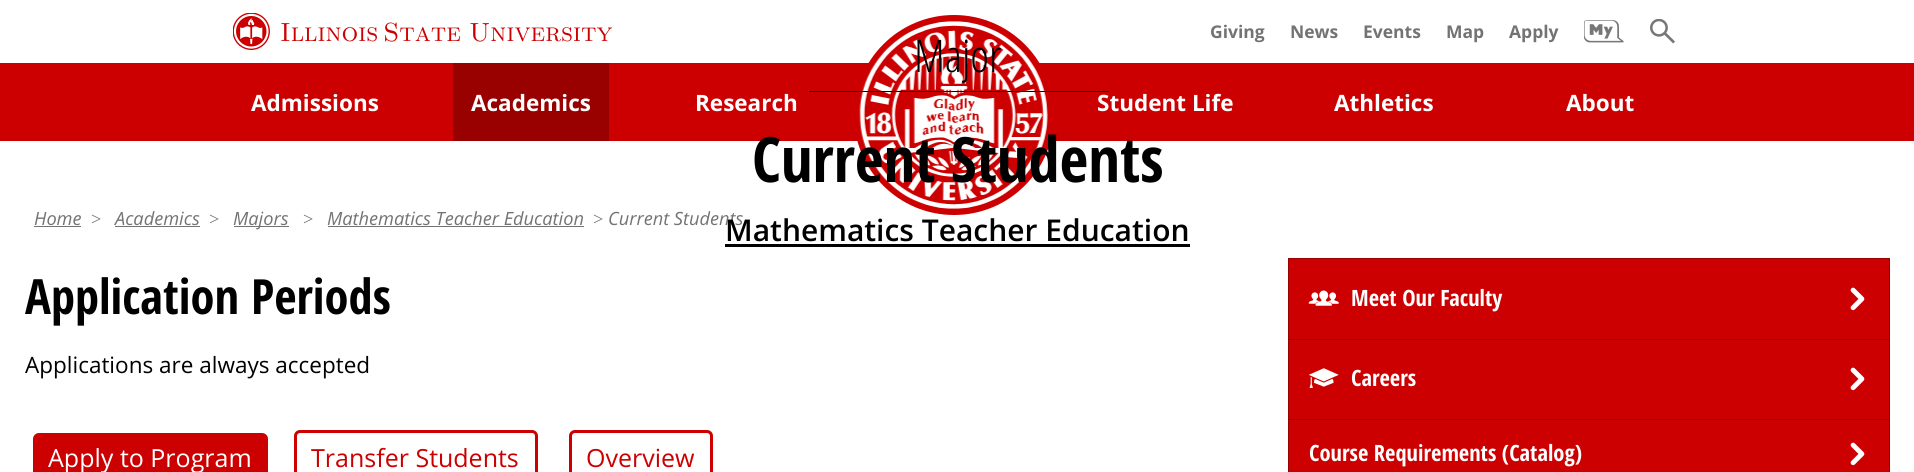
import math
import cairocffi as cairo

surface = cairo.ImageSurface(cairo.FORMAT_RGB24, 1914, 472)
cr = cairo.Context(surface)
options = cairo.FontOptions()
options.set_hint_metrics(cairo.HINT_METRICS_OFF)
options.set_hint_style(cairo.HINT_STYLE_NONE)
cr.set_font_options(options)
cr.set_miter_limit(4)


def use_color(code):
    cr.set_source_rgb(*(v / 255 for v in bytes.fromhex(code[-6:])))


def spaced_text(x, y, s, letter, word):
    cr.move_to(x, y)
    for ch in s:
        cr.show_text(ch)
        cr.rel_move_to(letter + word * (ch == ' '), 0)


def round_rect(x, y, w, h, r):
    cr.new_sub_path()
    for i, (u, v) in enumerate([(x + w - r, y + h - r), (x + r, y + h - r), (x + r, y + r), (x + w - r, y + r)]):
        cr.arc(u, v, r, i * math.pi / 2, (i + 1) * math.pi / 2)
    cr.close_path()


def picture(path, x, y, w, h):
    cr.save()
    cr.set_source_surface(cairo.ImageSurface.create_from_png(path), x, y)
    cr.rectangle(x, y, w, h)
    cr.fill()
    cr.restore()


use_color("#ffffff")
cr.paint()
picture("img1.png", 233, 13, 37, 37)
cr.select_font_face("Latin Modern Roman Caps")
cr.set_font_size(26.25)
use_color("#cc0000")
spaced_text(280, 41, "Illinois State", 0, -5)
cr.move_to(469, 41)
cr.show_text("University")
cr.select_font_face("Open Sans", cairo.FONT_SLANT_NORMAL, cairo.FONT_WEIGHT_BOLD)
cr.set_font_size(17.5)
use_color("#737373")
cr.move_to(1210, 38)
cr.show_text("Giving")
cr.move_to(1290, 38)
cr.show_text("News")
cr.move_to(1363, 38)
cr.show_text("Events")
cr.move_to(1446, 38)
cr.show_text("Map")
cr.move_to(1509, 38)
cr.show_text("Apply")
picture("img2.png", 1584, 20, 40, 23)
picture("img3.png", 1650, 19, 25, 25)
cr.select_font_face("Open Sans", cairo.FONT_SLANT_ITALIC)
cr.set_font_size(18.25)
cr.move_to(34, 225)
cr.show_text("Home")
cr.rectangle(34, 226, 47, 1)
cr.fill()
cr.select_font_face("Liberation Serif")
cr.move_to(91, 225)
cr.show_text(">")
cr.select_font_face("Open Sans", cairo.FONT_SLANT_ITALIC)
cr.move_to(115, 225)
cr.show_text("Academics")
cr.rectangle(115, 226, 85, 1)
cr.fill()
cr.select_font_face("Liberation Serif")
cr.move_to(209, 225)
cr.show_text(">")
cr.rectangle(234, 226, 55, 1)
cr.fill()
cr.select_font_face("Open Sans", cairo.FONT_SLANT_ITALIC)
cr.move_to(233, 225)
cr.show_text("Majors")
cr.select_font_face("Liberation Serif")
cr.move_to(303, 225)
cr.show_text(">")
cr.select_font_face("Open Sans", cairo.FONT_SLANT_ITALIC)
cr.move_to(327, 225)
cr.show_text("Mathematics Teacher Education")
cr.rectangle(328, 226, 256, 1)
cr.fill()
cr.select_font_face("Liberation Serif")
cr.move_to(593, 225)
cr.show_text(">")
cr.select_font_face("Open Sans", cairo.FONT_SLANT_ITALIC)
cr.move_to(608, 225)
cr.show_text("Current Students")
use_color("#cc0000")
cr.rectangle(0, 63, 1914, 78)
cr.fill()
cr.arc(954, 115, 100, 0, 2 * math.pi)
cr.fill()
picture("img7.png", 859, 21, 189, 188)
use_color("#000000")
cr.rectangle(809, 91, 300, 1)
cr.fill()
cr.select_font_face("Open Sans Light")
cr.set_font_size(45)
cr.move_to(914, 72)
cr.show_text("Major")
cr.select_font_face("Open Sans Condensed", cairo.FONT_SLANT_NORMAL, cairo.FONT_WEIGHT_BOLD)
cr.set_font_size(62.5)
cr.move_to(752, 182)
cr.show_text("Current Students")
cr.select_font_face("Open Sans SemiBold")
cr.set_font_size(30)
cr.move_to(725, 241)
cr.show_text("Mathematics Teacher Education")
cr.rectangle(725, 244, 465, 3)
cr.fill()
cr.select_font_face("Open Sans Condensed", cairo.FONT_SLANT_NORMAL, cairo.FONT_WEIGHT_BOLD)
cr.set_font_size(48.5)
cr.move_to(25, 314)
cr.show_text("Application Periods")
cr.select_font_face("Open Sans")
cr.set_font_size(22.5)
cr.move_to(25, 373)
cr.show_text("Applications are always accepted")
use_color("#cc0000")
round_rect(33, 433, 235, 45, 6)
cr.fill()
cr.set_font_size(25)
use_color("#ffffff")
cr.move_to(48, 467)
cr.show_text("Apply to Program")
round_rect(295.5, 431.5, 241, 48, 4.5)
use_color("#cc0000")
cr.set_line_width(3)
cr.stroke()
cr.move_to(311, 467)
cr.show_text("Transfer Students")
round_rect(570.5, 431.5, 141, 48, 4.5)
cr.stroke()
cr.move_to(586, 467)
cr.show_text("Overview")
use_color("#990000")
cr.rectangle(1288, 258, 602, 1)
cr.fill()
cr.rectangle(1889, 258, 1, 214)
cr.fill()
cr.rectangle(1288, 258, 1, 214)
cr.fill()
use_color("#cc0000")
cr.rectangle(1289, 259, 600, 80)
cr.fill()
use_color("#990000")
cr.rectangle(1289, 339, 600, 1)
cr.fill()
picture("img4.png", 1308, 290, 31, 16)
cr.select_font_face("Open Sans Condensed", cairo.FONT_SLANT_NORMAL, cairo.FONT_WEIGHT_BOLD)
cr.set_font_size(22.5)
use_color("#ffffff")
cr.move_to(1351, 306)
cr.show_text("Meet Our Faculty")
picture("img5.png", 1850, 287, 15, 24)
use_color("#cc0000")
cr.rectangle(1289, 340, 600, 79)
cr.fill()
use_color("#990000")
cr.rectangle(1289, 419, 600, 1)
cr.fill()
picture("img6.png", 1308, 368, 31, 20)
use_color("#ffffff")
cr.move_to(1351, 386)
cr.show_text("Careers")
picture("img5.png", 1850, 367, 15, 24)
use_color("#cc0000")
cr.rectangle(1289, 420, 600, 52)
cr.fill()
use_color("#ffffff")
cr.move_to(1309, 461)
cr.show_text("Course Requirements (Catalog)")
picture("img5.png", 1850, 442, 15, 24)
cr.select_font_face("Open Sans", cairo.FONT_SLANT_NORMAL, cairo.FONT_WEIGHT_BOLD)
cr.move_to(251, 111)
cr.show_text("Admissions")
use_color("#990000")
cr.rectangle(453, 63, 156, 78)
cr.fill()
use_color("#ffffff")
cr.move_to(471, 111)
cr.show_text("Academics")
cr.move_to(695, 111)
cr.show_text("Research")
cr.move_to(1097, 111)
cr.show_text("Student Life")
cr.move_to(1334, 111)
cr.show_text("Athletics")
cr.move_to(1566, 111)
cr.show_text("About")
surface.write_to_png("result.png")
